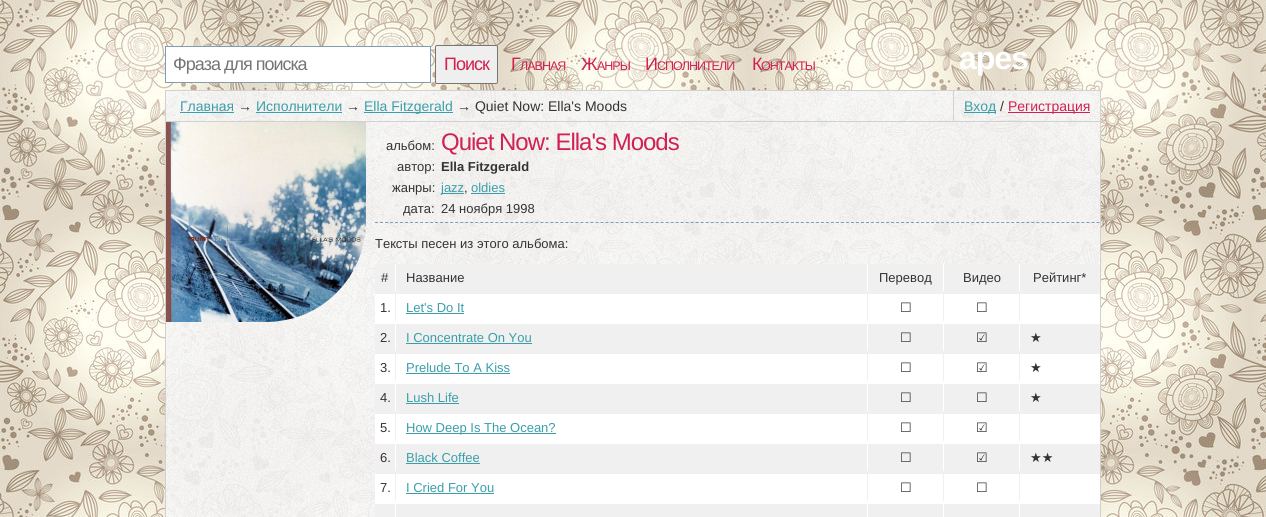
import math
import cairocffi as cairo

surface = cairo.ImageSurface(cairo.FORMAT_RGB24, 1266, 517)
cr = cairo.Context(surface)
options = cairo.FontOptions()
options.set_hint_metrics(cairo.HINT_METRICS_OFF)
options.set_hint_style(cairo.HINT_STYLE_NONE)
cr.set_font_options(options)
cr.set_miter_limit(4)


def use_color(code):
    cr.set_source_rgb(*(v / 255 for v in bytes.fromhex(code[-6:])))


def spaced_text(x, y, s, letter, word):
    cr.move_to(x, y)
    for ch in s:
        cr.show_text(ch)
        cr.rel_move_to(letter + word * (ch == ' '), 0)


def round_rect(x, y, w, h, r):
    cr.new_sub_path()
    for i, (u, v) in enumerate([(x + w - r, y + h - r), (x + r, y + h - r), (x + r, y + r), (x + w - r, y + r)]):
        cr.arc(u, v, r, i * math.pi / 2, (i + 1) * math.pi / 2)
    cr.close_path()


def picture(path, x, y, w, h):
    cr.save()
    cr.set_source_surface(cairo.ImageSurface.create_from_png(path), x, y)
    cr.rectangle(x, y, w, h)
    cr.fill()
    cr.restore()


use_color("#ffffff")
cr.paint()
picture("img1.png", 0, 0, 1266, 517)
use_color("#ffffff")
cr.rectangle(165.5, 46.5, 265, 36)
cr.fill_preserve()
use_color("#7f9db9")
cr.set_line_width(1)
cr.stroke()
cr.select_font_face("Liberation Sans")
cr.set_font_size(18)
use_color("#757575")
spaced_text(173, 70, "Фраза для поиска", -1, 0)
use_color("#efefef")
round_rect(435.5, 45.5, 62, 38, 1.5)
cr.fill_preserve()
use_color("#767676")
cr.stroke()
use_color("#d12052")
spaced_text(444, 70, "Поиск", -1, 0)
spaced_text(511, 70, "Г", -1, 0)
cr.set_font_size(12.5)
spaced_text(520, 70, "ЛАВНАЯ", -1, 0)
cr.set_font_size(18)
spaced_text(581, 70, "Ж", -1, 0)
cr.set_font_size(12.5)
spaced_text(597, 70, "АНРЫ", -1, 0)
cr.set_font_size(18)
spaced_text(645, 70, "И", -1, 0)
cr.set_font_size(12.5)
spaced_text(657, 70, "СПОЛНИТЕЛИ", -1, 0)
cr.set_font_size(18)
spaced_text(752, 70, "К", -1, 0)
cr.set_font_size(12.5)
spaced_text(761, 70, "ОНТАКТЫ", -1, 0)
cr.select_font_face("Liberation Sans", cairo.FONT_SLANT_NORMAL, cairo.FONT_WEIGHT_BOLD)
cr.set_font_size(32)
use_color("#ffffff")
spaced_text(959, 69, "apes", -1, 0)
picture("img2.png", 166, 91, 934, 426)
cr.rectangle(165.5, 90.5, 935, 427)
use_color("#d1d1d1")
cr.stroke()
cr.rectangle(166, 121, 934, 1)
cr.fill()
cr.select_font_face("Liberation Sans")
cr.set_font_size(14)
use_color("#3a9fa9")
cr.move_to(180, 111)
cr.show_text("Главная")
cr.rectangle(180, 112, 54, 1)
cr.fill()
use_color("#333333")
cr.move_to(238, 111)
cr.show_text("→")
use_color("#3a9fa9")
cr.move_to(256, 111)
cr.show_text("Исполнители")
cr.rectangle(256, 112, 86, 1)
cr.fill()
use_color("#333333")
cr.move_to(346, 111)
cr.show_text("→")
use_color("#3a9fa9")
cr.rectangle(364, 112, 89, 1)
cr.fill()
cr.move_to(364, 111)
cr.show_text("Ella Fitzgerald")
use_color("#333333")
cr.move_to(457, 111)
cr.show_text("→ Quiet Now: Ella's Moods")
use_color("#d1d1d1")
cr.rectangle(953, 91, 1, 31)
cr.fill()
use_color("#3a9fa9")
cr.rectangle(964, 112, 32, 1)
cr.fill()
cr.move_to(964, 111)
cr.show_text("Вход")
use_color("#333333")
cr.move_to(1000, 111)
cr.show_text("/")
use_color("#d12052")
cr.rectangle(1008, 112, 82, 1)
cr.fill()
cr.move_to(1008, 111)
cr.show_text("Регистрация")
picture("img3.png", 166, 122, 200, 200)
cr.new_path()
cr.move_to(375, 222.5)
cr.line_to(1100, 222.5)
use_color("#7f9db9")
cr.set_dash([3, 2.01])
cr.stroke()
cr.set_font_size(13)
use_color("#333333")
cr.move_to(386, 150)
cr.show_text("альбом:")
cr.set_font_size(24)
use_color("#d12052")
spaced_text(441, 150, "Quiet Now: Ella's Moods", -1, 0)
cr.set_font_size(13)
use_color("#333333")
cr.move_to(397, 171)
cr.show_text("автор:")
cr.select_font_face("Liberation Sans", cairo.FONT_SLANT_NORMAL, cairo.FONT_WEIGHT_BOLD)
cr.move_to(441, 171)
cr.show_text("Ella Fitzgerald")
cr.select_font_face("Liberation Sans")
cr.move_to(392, 192)
cr.show_text("жанры:")
use_color("#3a9fa9")
cr.rectangle(441, 193, 23, 1)
cr.fill()
cr.move_to(441, 192)
cr.show_text("jazz")
use_color("#333333")
cr.move_to(464, 192)
cr.show_text(",")
use_color("#3a9fa9")
cr.move_to(471, 192)
cr.show_text("oldies")
cr.rectangle(471, 193, 34, 1)
cr.fill()
use_color("#333333")
cr.move_to(403, 213)
cr.show_text("дата:")
cr.move_to(441, 213)
cr.show_text("24 ноября 1998")
cr.move_to(375, 248)
cr.show_text("Тексты песен из этого альбома:")
use_color("#f0f0f0")
cr.rectangle(375, 264, 725, 30)
cr.fill()
use_color("#ffffff")
cr.rectangle(395, 264, 1, 27)
cr.fill()
use_color("#333333")
cr.move_to(381, 282)
cr.show_text("#")
cr.move_to(406, 282)
cr.show_text("Название")
use_color("#ffffff")
cr.rectangle(943, 264, 1, 27)
cr.fill()
cr.rectangle(867, 264, 1, 27)
cr.fill()
use_color("#333333")
cr.move_to(879, 282)
cr.show_text("Перевод")
use_color("#ffffff")
cr.rectangle(1019, 264, 1, 27)
cr.fill()
use_color("#333333")
cr.move_to(963, 282)
cr.show_text("Видео")
cr.move_to(1033, 282)
cr.show_text("Рейтинг*")
use_color("#ffffff")
cr.rectangle(375, 294, 725, 210)
cr.fill()
use_color("#f0f0f0")
cr.rectangle(395, 294, 1, 27)
cr.fill()
use_color("#333333")
cr.move_to(380, 312)
cr.show_text("1.")
use_color("#3a9fa9")
cr.move_to(406, 312)
cr.show_text("Let's Do It")
cr.rectangle(406, 313, 58, 1)
cr.fill()
use_color("#f0f0f0")
cr.rectangle(943, 294, 1, 27)
cr.fill()
cr.rectangle(867, 294, 1, 27)
cr.fill()
cr.select_font_face("DejaVu Sans")
use_color("#333333")
cr.move_to(900, 312)
cr.show_text("☐")
use_color("#f0f0f0")
cr.rectangle(1019, 294, 1, 27)
cr.fill()
use_color("#333333")
cr.move_to(976, 312)
cr.show_text("☐")
use_color("#f0f0f0")
cr.rectangle(375, 324, 725, 30)
cr.fill()
use_color("#ffffff")
cr.rectangle(395, 324, 1, 27)
cr.fill()
cr.select_font_face("Liberation Sans")
use_color("#333333")
cr.move_to(380, 342)
cr.show_text("2.")
use_color("#3a9fa9")
cr.move_to(406, 342)
cr.show_text("I Concentrate On You")
cr.rectangle(406, 343, 126, 1)
cr.fill()
use_color("#ffffff")
cr.rectangle(943, 324, 1, 27)
cr.fill()
cr.rectangle(867, 324, 1, 27)
cr.fill()
cr.select_font_face("DejaVu Sans")
use_color("#333333")
cr.move_to(900, 342)
cr.show_text("☐")
use_color("#ffffff")
cr.rectangle(1019, 324, 1, 27)
cr.fill()
use_color("#333333")
cr.move_to(976, 342)
cr.show_text("☑")
cr.move_to(1030, 342)
cr.show_text("★")
use_color("#f0f0f0")
cr.rectangle(395, 354, 1, 27)
cr.fill()
cr.select_font_face("Liberation Sans")
use_color("#333333")
cr.move_to(380, 372)
cr.show_text("3.")
use_color("#3a9fa9")
cr.move_to(406, 372)
cr.show_text("Prelude To A Kiss")
cr.rectangle(406, 373, 104, 1)
cr.fill()
use_color("#f0f0f0")
cr.rectangle(943, 354, 1, 27)
cr.fill()
cr.rectangle(867, 354, 1, 27)
cr.fill()
cr.select_font_face("DejaVu Sans")
use_color("#333333")
cr.move_to(900, 372)
cr.show_text("☐")
use_color("#f0f0f0")
cr.rectangle(1019, 354, 1, 27)
cr.fill()
use_color("#333333")
cr.move_to(976, 372)
cr.show_text("☑")
cr.move_to(1030, 372)
cr.show_text("★")
use_color("#f0f0f0")
cr.rectangle(375, 384, 725, 30)
cr.fill()
use_color("#ffffff")
cr.rectangle(395, 384, 1, 27)
cr.fill()
cr.select_font_face("Liberation Sans")
use_color("#333333")
cr.move_to(380, 402)
cr.show_text("4.")
use_color("#3a9fa9")
cr.move_to(406, 402)
cr.show_text("Lush Life")
cr.rectangle(406, 403, 53, 1)
cr.fill()
use_color("#ffffff")
cr.rectangle(943, 384, 1, 27)
cr.fill()
cr.rectangle(867, 384, 1, 27)
cr.fill()
cr.select_font_face("DejaVu Sans")
use_color("#333333")
cr.move_to(900, 402)
cr.show_text("☐")
use_color("#ffffff")
cr.rectangle(1019, 384, 1, 27)
cr.fill()
use_color("#333333")
cr.move_to(976, 402)
cr.show_text("☐")
cr.move_to(1030, 402)
cr.show_text("★")
use_color("#f0f0f0")
cr.rectangle(395, 414, 1, 27)
cr.fill()
cr.select_font_face("Liberation Sans")
use_color("#333333")
cr.move_to(380, 432)
cr.show_text("5.")
use_color("#3a9fa9")
cr.rectangle(406, 433, 150, 1)
cr.fill()
cr.move_to(406, 432)
cr.show_text("How Deep Is The Ocean?")
use_color("#f0f0f0")
cr.rectangle(943, 414, 1, 27)
cr.fill()
cr.rectangle(867, 414, 1, 27)
cr.fill()
cr.select_font_face("DejaVu Sans")
use_color("#333333")
cr.move_to(900, 432)
cr.show_text("☐")
use_color("#f0f0f0")
cr.rectangle(1019, 414, 1, 27)
cr.fill()
use_color("#333333")
cr.move_to(976, 432)
cr.show_text("☑")
use_color("#f0f0f0")
cr.rectangle(375, 444, 725, 30)
cr.fill()
use_color("#ffffff")
cr.rectangle(395, 444, 1, 27)
cr.fill()
cr.select_font_face("Liberation Sans")
use_color("#333333")
cr.move_to(380, 462)
cr.show_text("6.")
use_color("#3a9fa9")
cr.move_to(406, 462)
cr.show_text("Black Coffee")
cr.rectangle(406, 463, 74, 1)
cr.fill()
use_color("#ffffff")
cr.rectangle(943, 444, 1, 27)
cr.fill()
cr.rectangle(867, 444, 1, 27)
cr.fill()
cr.select_font_face("DejaVu Sans")
use_color("#333333")
cr.move_to(900, 462)
cr.show_text("☐")
use_color("#ffffff")
cr.rectangle(1019, 444, 1, 27)
cr.fill()
use_color("#333333")
cr.move_to(976, 462)
cr.show_text("☑")
cr.move_to(1030, 462)
cr.show_text("★★")
use_color("#f0f0f0")
cr.rectangle(395, 474, 1, 27)
cr.fill()
cr.select_font_face("Liberation Sans")
use_color("#333333")
cr.move_to(380, 492)
cr.show_text("7.")
use_color("#3a9fa9")
cr.move_to(406, 492)
cr.show_text("I Cried For You")
cr.rectangle(406, 493, 88, 1)
cr.fill()
use_color("#f0f0f0")
cr.rectangle(943, 474, 1, 27)
cr.fill()
cr.rectangle(867, 474, 1, 27)
cr.fill()
cr.select_font_face("DejaVu Sans")
use_color("#333333")
cr.move_to(900, 492)
cr.show_text("☐")
use_color("#f0f0f0")
cr.rectangle(1019, 474, 1, 27)
cr.fill()
use_color("#333333")
cr.move_to(976, 492)
cr.show_text("☐")
use_color("#f0f0f0")
cr.rectangle(375, 504, 725, 13)
cr.fill()
use_color("#ffffff")
cr.rectangle(395, 504, 1, 13)
cr.fill()
cr.rectangle(943, 504, 1, 13)
cr.fill()
cr.rectangle(867, 504, 1, 13)
cr.fill()
cr.rectangle(1019, 504, 1, 13)
cr.fill()
surface.write_to_png("result.png")
